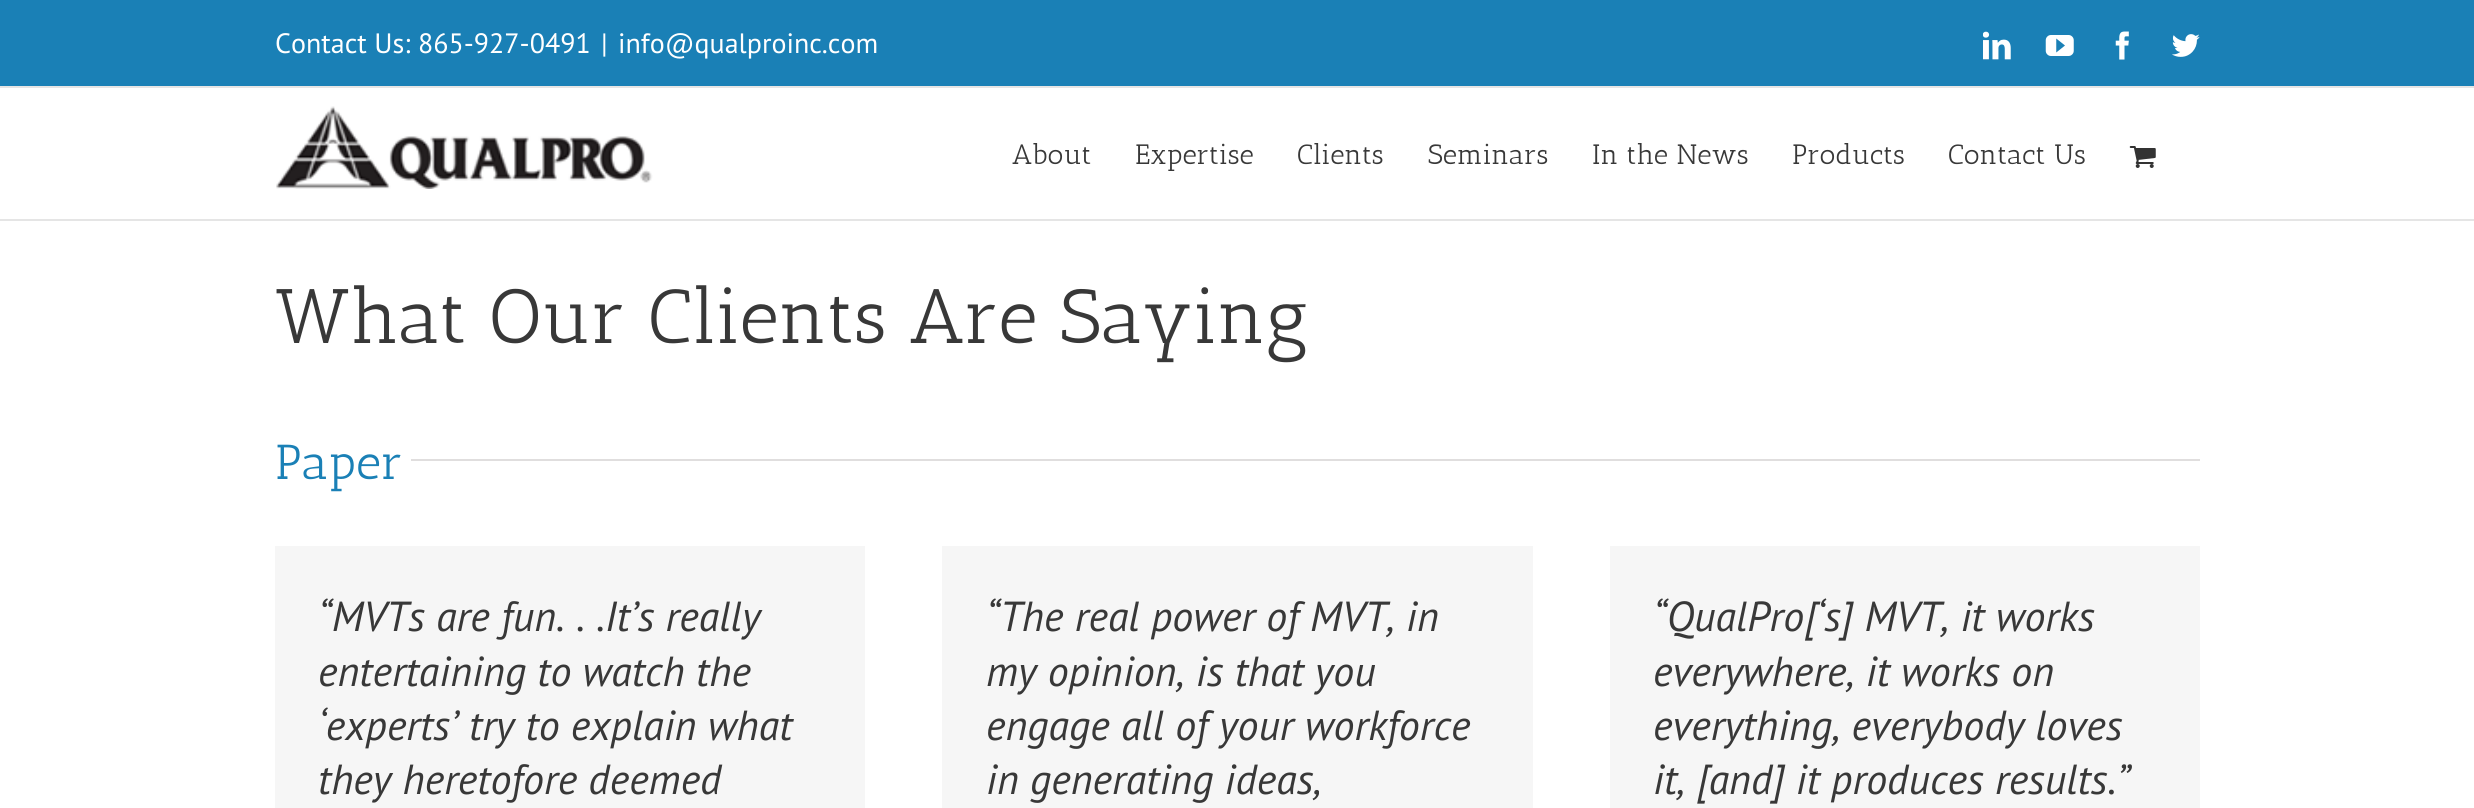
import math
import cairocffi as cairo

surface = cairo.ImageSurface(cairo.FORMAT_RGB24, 2474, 808)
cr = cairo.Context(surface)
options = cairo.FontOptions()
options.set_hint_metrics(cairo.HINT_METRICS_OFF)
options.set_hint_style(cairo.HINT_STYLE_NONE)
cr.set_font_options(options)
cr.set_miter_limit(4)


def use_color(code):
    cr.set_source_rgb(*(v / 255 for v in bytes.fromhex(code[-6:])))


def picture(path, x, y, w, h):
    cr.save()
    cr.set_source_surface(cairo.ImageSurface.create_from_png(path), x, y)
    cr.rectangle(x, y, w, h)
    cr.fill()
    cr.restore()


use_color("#ffffff")
cr.paint()
use_color("#1a80b6")
cr.rectangle(0, 0, 2474, 86)
cr.fill()
use_color("#e5e5e5")
cr.rectangle(0, 86, 2474, 2)
cr.fill()
cr.select_font_face("PT Sans")
cr.set_font_size(28)
use_color("#ffffff")
cr.move_to(275, 53)
cr.show_text("Contact Us: 865-927-0491")
cr.move_to(601, 53)
cr.show_text("|")
cr.move_to(618, 53)
cr.show_text("info@qualproinc.com")
picture("img1.png", 1983, 31, 28, 29)
picture("img2.png", 2045, 35, 29, 21)
picture("img3.png", 2115, 31, 14, 29)
picture("img4.png", 2172, 34, 28, 23)
use_color("#e5e5e5")
cr.rectangle(0, 219, 2474, 2)
cr.fill()
picture("img5.png", 276, 106, 377, 83)
cr.select_font_face("Antic Slab")
use_color("#383838")
cr.move_to(1012, 164)
cr.show_text("About")
cr.move_to(1135, 164)
cr.show_text("Expertise")
cr.move_to(1297, 164)
cr.show_text("Clients")
cr.move_to(1428, 164)
cr.show_text("Seminars")
cr.move_to(1592, 164)
cr.show_text("In the News")
cr.move_to(1792, 164)
cr.show_text("Products")
cr.move_to(1948, 164)
cr.show_text("Contact Us")
picture("img6.png", 2129, 146, 27, 22)
cr.set_font_size(77)
cr.move_to(275, 343)
cr.show_text("What Our Clients Are Saying")
cr.set_font_size(49)
use_color("#1a80b6")
cr.move_to(275, 479)
cr.show_text("Paper")
use_color("#e0dede")
cr.rectangle(411, 459, 1789, 2)
cr.fill()
use_color("#f6f6f6")
cr.rectangle(275, 546, 590, 262)
cr.fill()
cr.select_font_face("PT Sans", cairo.FONT_SLANT_ITALIC)
cr.set_font_size(42)
use_color("#383838")
cr.move_to(318, 631)
cr.show_text("“MVTs are fun. . .It’s really")
cr.move_to(318, 686)
cr.show_text("entertaining to watch the")
cr.move_to(318, 740)
cr.show_text("‘experts’ try to explain what")
cr.move_to(318, 794)
cr.show_text("they heretofore deemed")
use_color("#f6f6f6")
cr.rectangle(942, 546, 591, 262)
cr.fill()
use_color("#383838")
cr.move_to(986, 631)
cr.show_text("“The real power of MVT, in")
cr.move_to(986, 686)
cr.show_text("my opinion, is that you")
cr.move_to(986, 740)
cr.show_text("engage all of your workforce")
cr.move_to(986, 794)
cr.show_text("in generating ideas,")
use_color("#f6f6f6")
cr.rectangle(1610, 546, 590, 262)
cr.fill()
use_color("#383838")
cr.move_to(1653, 631)
cr.show_text("“QualPro[‘s] MVT, it works")
cr.move_to(1653, 686)
cr.show_text("everywhere, it works on")
cr.move_to(1653, 740)
cr.show_text("everything, everybody loves")
cr.move_to(1653, 794)
cr.show_text("it, [and] it produces results.”")
surface.write_to_png("result.png")
